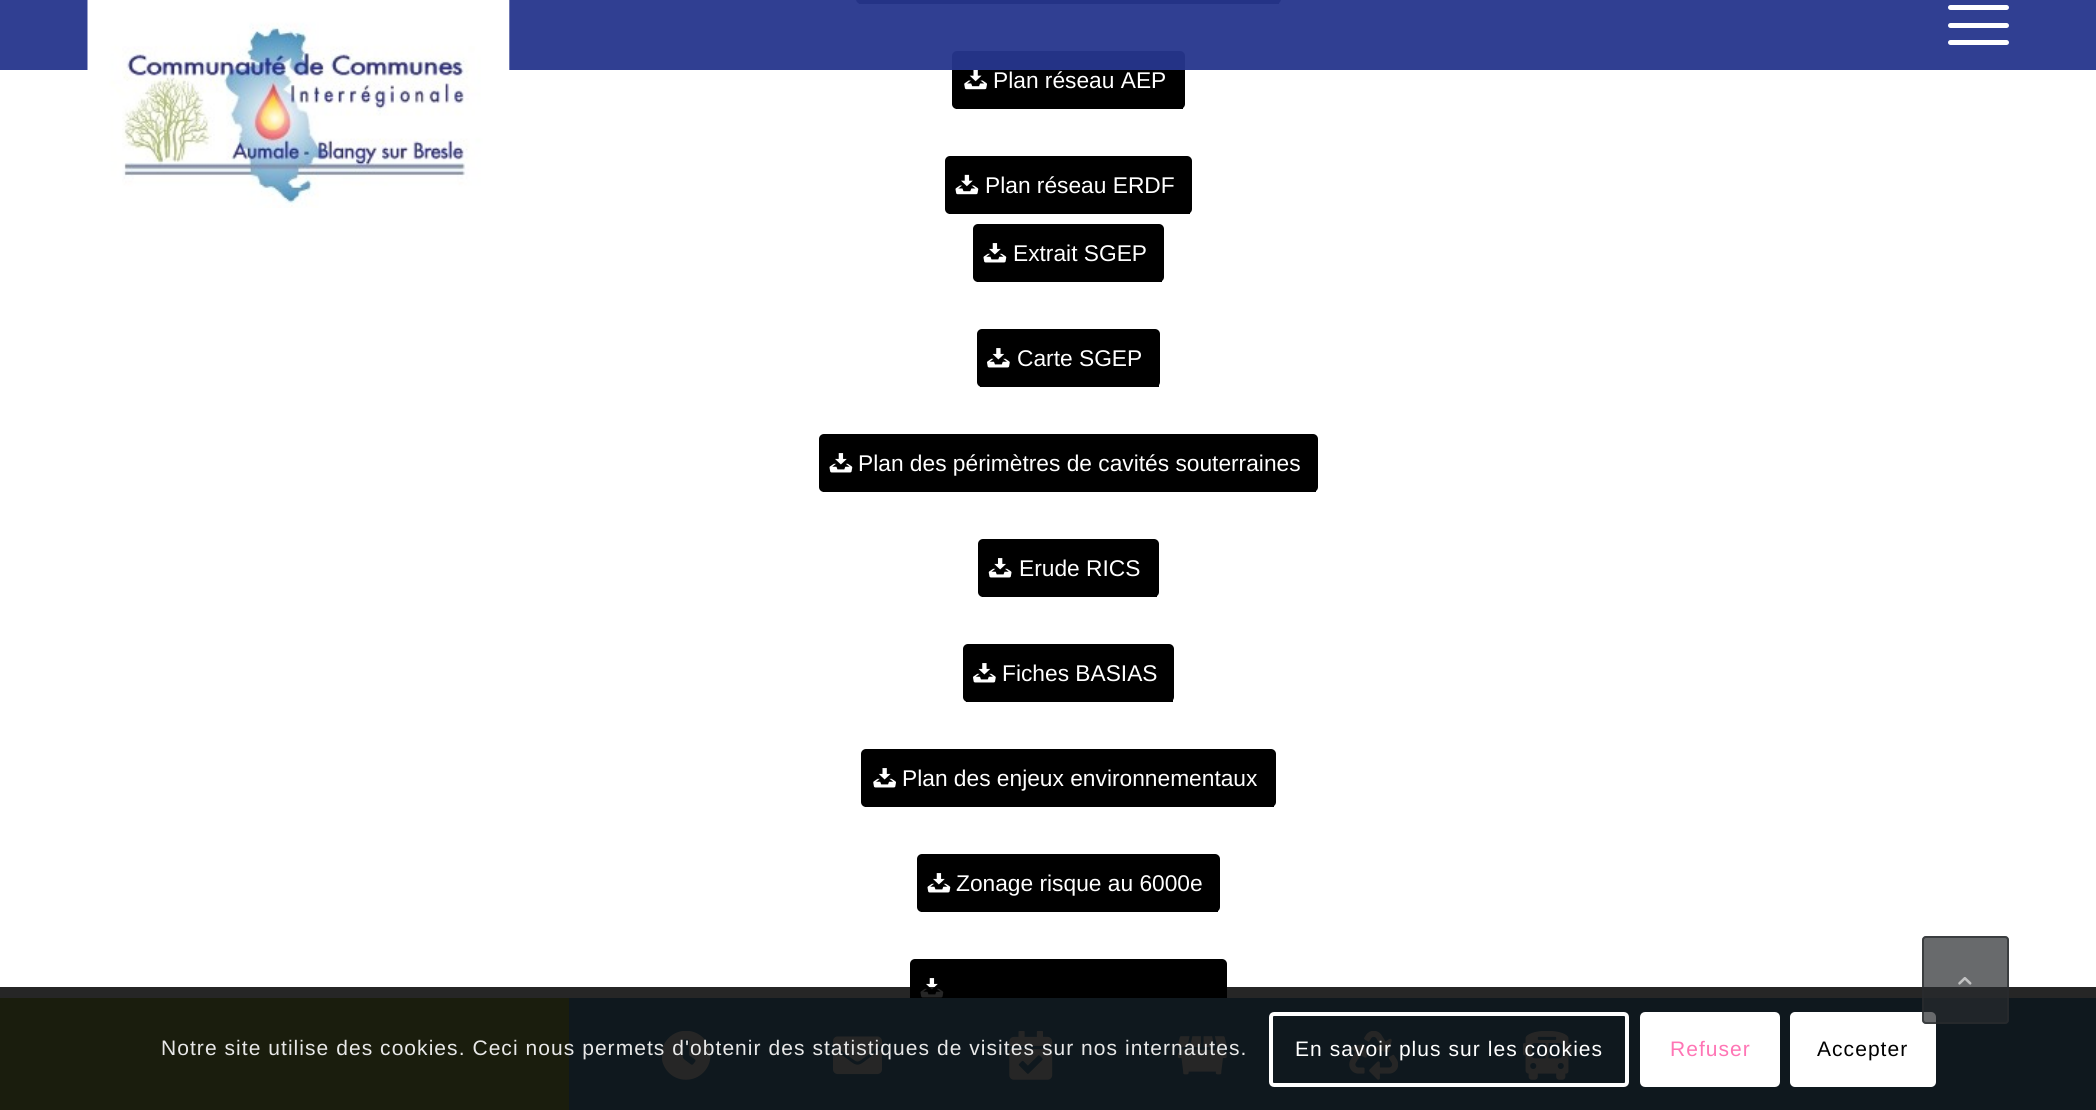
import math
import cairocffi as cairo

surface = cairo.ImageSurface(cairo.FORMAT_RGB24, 2096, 1110)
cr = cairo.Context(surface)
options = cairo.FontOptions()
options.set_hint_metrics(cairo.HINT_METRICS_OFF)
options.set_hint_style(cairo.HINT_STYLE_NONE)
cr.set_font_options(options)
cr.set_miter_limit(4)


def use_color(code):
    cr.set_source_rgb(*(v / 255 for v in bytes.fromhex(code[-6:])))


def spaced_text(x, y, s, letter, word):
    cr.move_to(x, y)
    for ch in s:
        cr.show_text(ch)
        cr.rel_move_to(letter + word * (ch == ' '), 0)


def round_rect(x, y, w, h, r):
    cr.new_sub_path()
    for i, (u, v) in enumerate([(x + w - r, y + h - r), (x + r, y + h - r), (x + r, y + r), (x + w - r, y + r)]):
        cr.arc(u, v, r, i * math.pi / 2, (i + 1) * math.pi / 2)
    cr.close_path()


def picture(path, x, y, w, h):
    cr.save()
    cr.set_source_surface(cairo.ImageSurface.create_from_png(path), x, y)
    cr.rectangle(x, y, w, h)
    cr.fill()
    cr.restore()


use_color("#ffffff")
cr.paint()
use_color("#000000")
round_rect(856, -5, 425, 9, 5)
cr.fill()
cr.rectangle(859, 3, 420, 1)
cr.fill()
round_rect(952, 51, 233, 58, 5)
cr.fill()
picture("img2.png", 964, 69, 23, 21)
cr.set_source_rgba(0.149, 0.212, 0.553, 0.95)
cr.rectangle(0, 0, 2096, 70)
cr.fill()
picture("img1.png", 87, 0, 423, 208)
use_color("#ffffff")
round_rect(1948, 23, 61, 5, 2.5)
cr.fill()
round_rect(1948, 5, 61, 5, 2.5)
cr.fill()
round_rect(1948, 40, 61, 5, 2.5)
cr.fill()
use_color("#000000")
cr.rectangle(956, 108, 227, 1)
cr.fill()
cr.select_font_face("Liberation Sans")
cr.set_font_size(22.75)
use_color("#ffffff")
cr.move_to(993, 88)
cr.show_text("Plan réseau AEP")
use_color("#000000")
round_rect(945, 156, 247, 58, 5)
cr.fill()
cr.rectangle(949, 213, 241, 1)
cr.fill()
picture("img3.png", 955, 174, 24, 21)
use_color("#ffffff")
cr.move_to(985, 193)
cr.show_text("Plan réseau ERDF")
use_color("#000000")
round_rect(973, 224, 191, 58, 5)
cr.fill()
cr.rectangle(977, 281, 185, 1)
cr.fill()
picture("img4.png", 983, 243, 24, 20)
use_color("#ffffff")
cr.move_to(1013, 261)
cr.show_text("Extrait SGEP")
use_color("#000000")
round_rect(977, 329, 183, 58, 5)
cr.fill()
cr.rectangle(980, 385, 179, 2)
cr.fill()
picture("img5.png", 987, 348, 23, 20)
use_color("#ffffff")
cr.move_to(1017, 366)
cr.show_text("Carte SGEP")
use_color("#000000")
round_rect(819, 434, 499, 58, 5)
cr.fill()
cr.rectangle(823, 491, 493, 1)
cr.fill()
picture("img4.png", 829, 453, 24, 20)
use_color("#ffffff")
cr.move_to(858, 471)
cr.show_text("Plan des périmètres de cavités souterraines")
use_color("#000000")
round_rect(978, 539, 181, 58, 5)
cr.fill()
cr.rectangle(982, 596, 175, 1)
cr.fill()
picture("img6.png", 988, 558, 24, 20)
use_color("#ffffff")
cr.move_to(1019, 576)
cr.show_text("Erude RICS")
use_color("#000000")
round_rect(963, 644, 211, 58, 5)
cr.fill()
cr.rectangle(966, 700, 207, 2)
cr.fill()
picture("img5.png", 973, 663, 23, 20)
use_color("#ffffff")
cr.move_to(1002, 681)
cr.show_text("Fiches BASIAS")
use_color("#000000")
round_rect(861, 749, 415, 58, 5)
cr.fill()
cr.rectangle(865, 806, 409, 1)
cr.fill()
picture("img7.png", 873, 768, 23, 20)
use_color("#ffffff")
cr.move_to(902, 786)
cr.show_text("Plan des enjeux environnementaux")
use_color("#000000")
round_rect(917, 854, 303, 58, 5)
cr.fill()
cr.rectangle(921, 911, 297, 1)
cr.fill()
picture("img4.png", 927, 873, 24, 20)
use_color("#ffffff")
cr.move_to(956, 891)
cr.show_text("Zonage risque au 6000e")
use_color("#000000")
round_rect(910, 959, 317, 58, 5)
cr.fill()
picture("img4.png", 920, 978, 24, 20)
use_color("#acc15a")
cr.rectangle(0, 998, 569, 112)
cr.fill()
use_color("#63a1c7")
cr.rectangle(569, 998, 1527, 112)
cr.fill()
picture("img8.png", 662, 1031, 49, 49)
picture("img9.png", 833, 1036, 49, 39)
picture("img10.png", 1009, 1031, 44, 49)
picture("img11.png", 1178, 1036, 49, 39)
picture("img12.png", 1349, 1031, 49, 49)
picture("img13.png", 1523, 1031, 49, 49)
cr.set_source_rgba(0, 0, 0, 0.85)
cr.rectangle(0, 987, 2096, 123)
cr.fill()
use_color("#ffffff")
round_rect(1790, 1012, 146, 75, 5)
cr.fill()
cr.set_source_rgba(0.157, 0.169, 0.18, 0.7)
round_rect(1922, 936, 87, 88, 4)
cr.fill()
round_rect(1923, 937, 85, 86, 3)
cr.stroke()
picture("img14.png", 1958, 977, 14, 8)
cr.set_font_size(21)
use_color("#e8e8e8")
spaced_text(161, 1055, "Notre site utilise des cookies. Ceci nous permets d'obtenir des statistiques de visites sur nos internautes.", 1.05, 0)
round_rect(1271, 1014, 356, 71, 3)
use_color("#ffffff")
cr.set_line_width(4)
cr.stroke()
spaced_text(1295, 1056, "En savoir plus sur les cookies", 1.05, 0)
round_rect(1642, 1014, 136, 71, 3)
cr.fill_preserve()
cr.stroke()
use_color("#ff75b5")
spaced_text(1670, 1056, "Refuser", 1.05, 0)
use_color("#000000")
spaced_text(1817, 1056, "Accepter", 1.05, 0)
surface.write_to_png("result.png")
